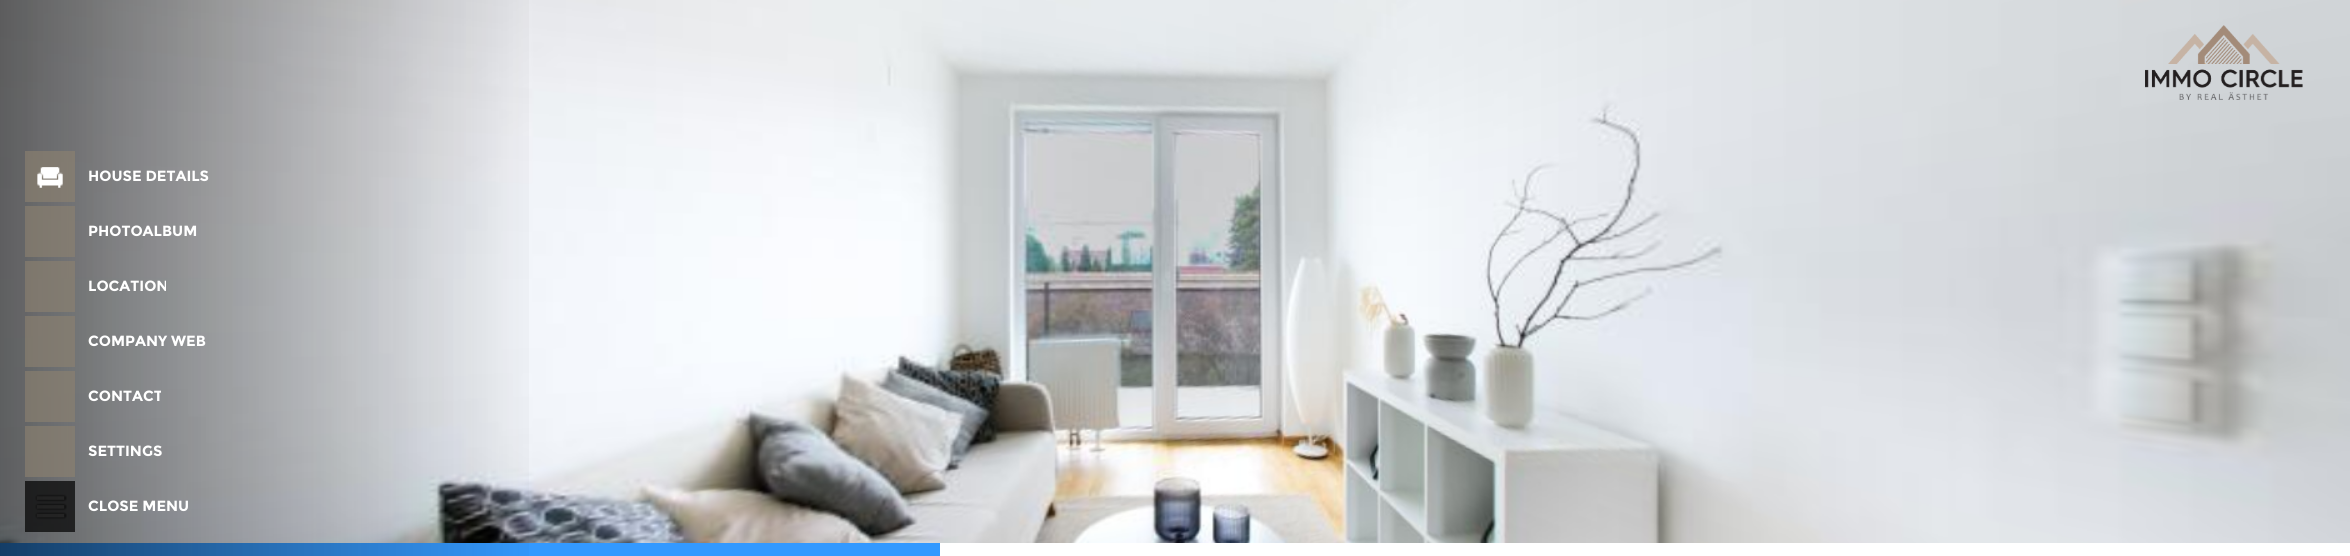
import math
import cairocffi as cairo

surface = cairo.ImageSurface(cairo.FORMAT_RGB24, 2350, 556)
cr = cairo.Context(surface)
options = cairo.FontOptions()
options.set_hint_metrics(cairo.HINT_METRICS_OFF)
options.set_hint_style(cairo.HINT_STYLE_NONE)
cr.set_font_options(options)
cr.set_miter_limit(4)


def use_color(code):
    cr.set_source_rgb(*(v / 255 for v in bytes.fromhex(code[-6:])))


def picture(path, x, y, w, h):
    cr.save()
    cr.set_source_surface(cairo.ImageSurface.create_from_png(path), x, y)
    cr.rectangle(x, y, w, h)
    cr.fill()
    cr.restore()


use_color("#ffffff")
cr.paint()
picture("img1.png", 0, 0, 2350, 543)
use_color("#3399ff")
cr.rectangle(0, 543, 940, 13)
cr.fill()
picture("img2.png", 2145, 25, 158, 75)
picture("img3.png", 35, 494, 32, 26)
picture("img4.png", 35, 494, 32, 26)
picture("img5.png", 0, 0, 529, 556)
cr.set_source_rgba(0.557, 0.51, 0.439, 0.6)
cr.rectangle(25, 151, 50, 51)
cr.fill()
picture("img6.png", 37, 167, 26, 21)
cr.rectangle(25, 206, 50, 51)
cr.fill()
cr.rectangle(25, 261, 50, 51)
cr.fill()
cr.rectangle(25, 316, 50, 51)
cr.fill()
cr.rectangle(25, 371, 50, 51)
cr.fill()
cr.rectangle(25, 426, 50, 51)
cr.fill()
cr.set_source_rgba(0, 0, 0, 0.7)
cr.rectangle(25, 481, 50, 51)
cr.fill()
cr.select_font_face("Montserrat", cairo.FONT_SLANT_NORMAL, cairo.FONT_WEIGHT_BOLD)
cr.set_font_size(14.75)
use_color("#ffffff")
cr.move_to(88, 181)
cr.show_text("HOUSE DETAILS")
cr.move_to(88, 236)
cr.show_text("PHOTOALBUM")
cr.save()
cr.rectangle(88, 278, 78, 17)
cr.clip()
cr.move_to(88, 291)
cr.show_text("LOCATION")
cr.restore()
cr.move_to(88, 346)
cr.show_text("COMPANY WEB")
cr.save()
cr.rectangle(88, 388, 73, 17)
cr.clip()
cr.move_to(88, 401)
cr.show_text("CONTACT")
cr.restore()
cr.move_to(88, 456)
cr.show_text("SETTINGS")
cr.move_to(88, 511)
cr.show_text("CLOSE MENU")
surface.write_to_png("result.png")
